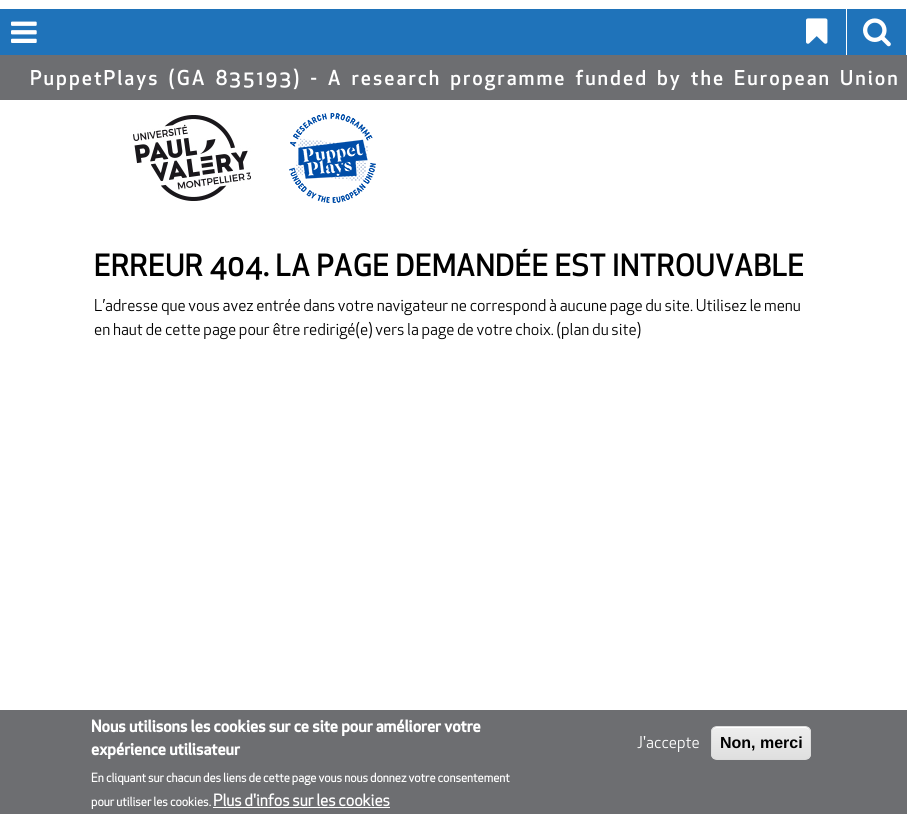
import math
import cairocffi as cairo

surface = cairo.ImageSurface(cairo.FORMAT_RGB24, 907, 814)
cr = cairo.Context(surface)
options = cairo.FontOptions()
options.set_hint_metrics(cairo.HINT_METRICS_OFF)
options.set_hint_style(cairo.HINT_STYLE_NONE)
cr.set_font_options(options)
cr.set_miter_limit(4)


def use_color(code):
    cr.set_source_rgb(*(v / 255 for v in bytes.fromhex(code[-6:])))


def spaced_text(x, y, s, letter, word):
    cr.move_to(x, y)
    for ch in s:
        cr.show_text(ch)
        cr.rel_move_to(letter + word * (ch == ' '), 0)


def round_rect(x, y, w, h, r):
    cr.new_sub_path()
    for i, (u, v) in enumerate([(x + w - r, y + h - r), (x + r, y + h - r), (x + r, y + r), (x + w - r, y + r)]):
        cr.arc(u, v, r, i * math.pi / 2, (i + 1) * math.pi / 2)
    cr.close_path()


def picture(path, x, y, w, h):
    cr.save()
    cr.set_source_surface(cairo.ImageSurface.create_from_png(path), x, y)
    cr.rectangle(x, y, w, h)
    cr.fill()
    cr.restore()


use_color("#ffffff")
cr.paint()
use_color("#1f73ba")
cr.rectangle(0, 9, 906, 46)
cr.fill()
picture("img1.png", 11, 21, 26, 22)
use_color("#ffffff")
cr.rectangle(846, 9, 1, 46)
cr.fill()
picture("img2.png", 806, 18, 22, 26)
picture("img3.png", 863, 18, 28, 29)
use_color("#6d6e71")
cr.rectangle(0, 55, 907, 45)
cr.fill()
cr.select_font_face("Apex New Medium")
cr.set_font_size(20)
use_color("#ffffff")
spaced_text(30, 85, "PuppetPlays (GA 835193) - A research programme funded by the European Union", 2, 3)
picture("img4.png", 133, 115, 118, 86)
picture("img5.png", 289, 113, 87, 90)
cr.set_font_size(30)
use_color("#000000")
cr.move_to(94, 276)
cr.show_text("ERREUR 404. LA PAGE DEMANDÉE EST INTROUVABLE")
cr.select_font_face("Apex New")
cr.set_font_size(16)
cr.move_to(94, 311)
cr.show_text("L’adresse que vous avez entrée dans votre navigateur ne correspond à aucune page du site. Utilisez le menu")
cr.move_to(94, 335)
cr.show_text("en haut de cette page pour être redirigé(e) vers la page de votre choix. (plan du site)")
use_color("#6d6e71")
cr.rectangle(0, 710, 907, 104)
cr.fill()
cr.select_font_face("Apex New", cairo.FONT_SLANT_NORMAL, cairo.FONT_WEIGHT_BOLD)
use_color("#ffffff")
cr.move_to(91, 732)
cr.show_text("Nous utilisons les cookies sur ce site pour améliorer votre")
cr.move_to(91, 755)
cr.show_text("expérience utilisateur")
cr.select_font_face("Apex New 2", cairo.FONT_SLANT_NORMAL, cairo.FONT_WEIGHT_BOLD)
cr.set_font_size(12)
cr.move_to(91, 782)
cr.show_text("En cliquant sur chacun des liens de cette page vous nous donnez votre consentement")
cr.move_to(91, 806)
cr.show_text("pour utiliser les cookies.")
cr.set_font_size(16)
cr.move_to(213, 806)
cr.show_text("Plus d'infos sur les cookies")
cr.rectangle(213, 807, 177, 1)
cr.fill()
cr.select_font_face("Apex New")
cr.move_to(637, 748)
cr.show_text("J'accepte")
cr.save()
round_rect(711, 726, 100, 34, 6)
cr.clip()
gradient = cairo.LinearGradient(761, 727, 761, 759)
gradient.add_color_stop_rgba(0.05, 0.929, 0.929, 0.929, 1)
gradient.add_color_stop_rgba(1, 0.875, 0.875, 0.875, 1)
cr.set_source(gradient)
cr.rectangle(711, 727, 100, 32)
cr.fill()
cr.restore()
cr.new_path()
cr.move_to(717, 728)
cr.line_to(805, 728)
cr.curve_to(808, 728, 810, 730, 810, 733)
cr.curve_to(810, 723, 796, 727, 790, 727)
cr.line_to(732, 727)
cr.curve_to(726, 727, 712, 723, 712, 733)
cr.curve_to(712, 730, 714, 728, 717, 728)
cr.close_path()
cr.fill()
round_rect(711.5, 726.5, 99, 33, 5.5)
use_color("#dcdcdc")
cr.set_line_width(1)
cr.stroke()
cr.select_font_face("Liberation Sans", cairo.FONT_SLANT_NORMAL, cairo.FONT_WEIGHT_BOLD)
use_color("#000000")
cr.move_to(720, 748)
cr.show_text("Non, merci")
surface.write_to_png("result.png")
